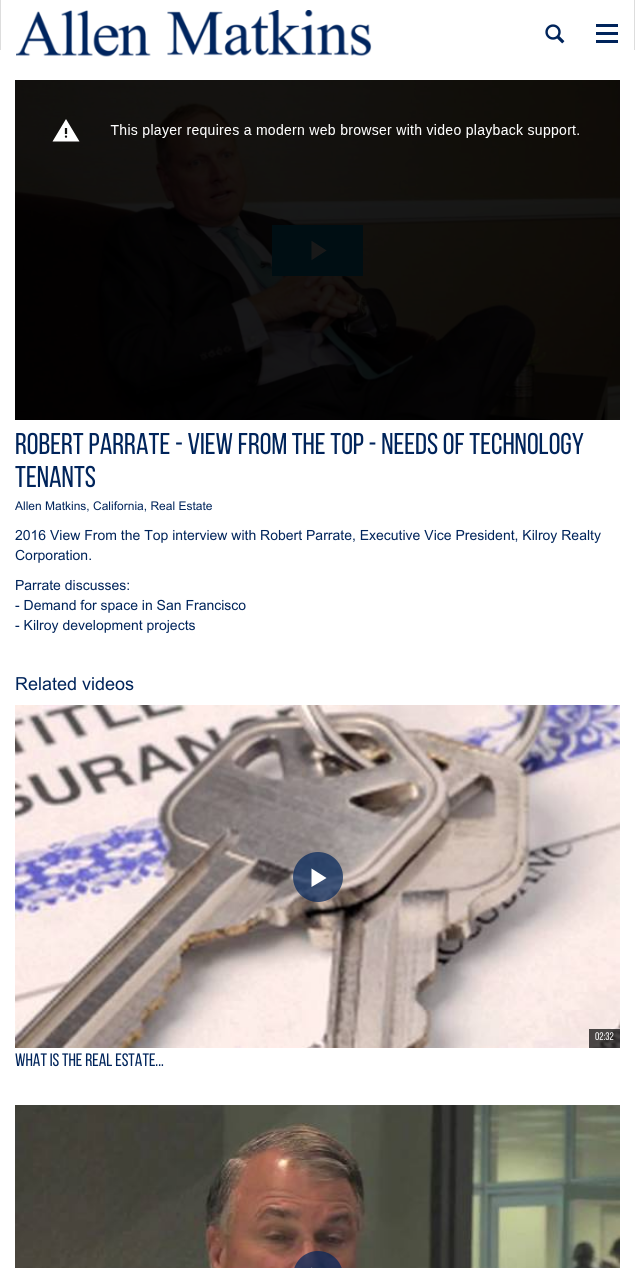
import math
import cairocffi as cairo

surface = cairo.ImageSurface(cairo.FORMAT_RGB24, 635, 1268)
cr = cairo.Context(surface)
options = cairo.FontOptions()
options.set_hint_metrics(cairo.HINT_METRICS_OFF)
options.set_hint_style(cairo.HINT_STYLE_NONE)
cr.set_font_options(options)
cr.set_miter_limit(4)


def use_color(code):
    cr.set_source_rgb(*(v / 255 for v in bytes.fromhex(code[-6:])))


def round_rect(x, y, w, h, r):
    cr.new_sub_path()
    for i, (u, v) in enumerate([(x + w - r, y + h - r), (x + r, y + h - r), (x + r, y + r), (x + w - r, y + r)]):
        cr.arc(u, v, r, i * math.pi / 2, (i + 1) * math.pi / 2)
    cr.close_path()


def picture(path, x, y, w, h):
    cr.save()
    cr.set_source_surface(cairo.ImageSurface.create_from_png(path), x, y)
    cr.rectangle(x, y, w, h)
    cr.fill()
    cr.restore()


use_color("#ffffff")
cr.paint()
use_color("#dddddd")
cr.rectangle(634, 0, 1, 50)
cr.fill()
cr.rectangle(0, 0, 1, 50)
cr.fill()
picture("img1.png", 16, 10, 356, 47)
picture("img2.png", 545, 24, 20, 20)
use_color("#00245b")
cr.rectangle(596, 24, 22, 3)
cr.fill()
cr.rectangle(596, 32, 22, 3)
cr.fill()
cr.rectangle(596, 40, 22, 3)
cr.fill()
picture("img3.png", 15, 80, 605, 340)
cr.select_font_face("Bebas Neue")
cr.set_font_size(30)
cr.move_to(15, 454)
cr.show_text("ROBERT PARRATE - View From the Top - Needs of Technology")
cr.move_to(15, 487)
cr.show_text("Tenants")
cr.select_font_face("Arial")
cr.set_font_size(12)
cr.move_to(15, 510)
cr.show_text("Allen Matkins, California, Real Estate")
cr.set_font_size(14)
cr.move_to(15, 540)
cr.show_text("2016 View From the Top interview with Robert Parrate, Executive Vice President, Kilroy Realty")
cr.move_to(15, 560)
cr.show_text("Corporation.")
cr.move_to(15, 590)
cr.show_text("Parrate discusses:")
cr.move_to(15, 610)
cr.show_text("- Demand for space in San Francisco")
cr.move_to(15, 630)
cr.show_text("- Kilroy development projects")
cr.set_font_size(18)
cr.move_to(15, 690)
cr.show_text("Related videos")
picture("img4.png", 15, 705, 605, 343)
cr.set_source_rgba(0, 0.141, 0.357, 0.7)
cr.arc(318, 877, 25, 0, 2 * math.pi)
cr.fill()
use_color("#ffffff")
cr.new_path()
cr.move_to(311.5, 887)
cr.line_to(326.5, 878)
cr.line_to(311.5, 868.5)
cr.close_path()
cr.fill()
cr.set_source_rgba(0, 0, 0, 0.7)
cr.rectangle(589, 1029, 31, 19)
cr.fill()
cr.select_font_face("Bebas Neue")
cr.set_font_size(11)
use_color("#ffffff")
cr.move_to(595, 1040)
cr.show_text("02:32")
cr.set_font_size(18)
use_color("#00245b")
cr.move_to(15, 1066)
cr.show_text("What is the Real Estate...")
picture("img5.png", 15, 1105, 605, 163)
cr.set_source_rgba(0, 0.141, 0.357, 0.7)
round_rect(293, 1251, 50, 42, 25)
cr.fill()
use_color("#ffffff")
cr.new_path()
cr.move_to(311.5, 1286)
cr.line_to(326.5, 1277)
cr.line_to(311.5, 1267.5)
cr.close_path()
cr.fill()
surface.write_to_png("result.png")
